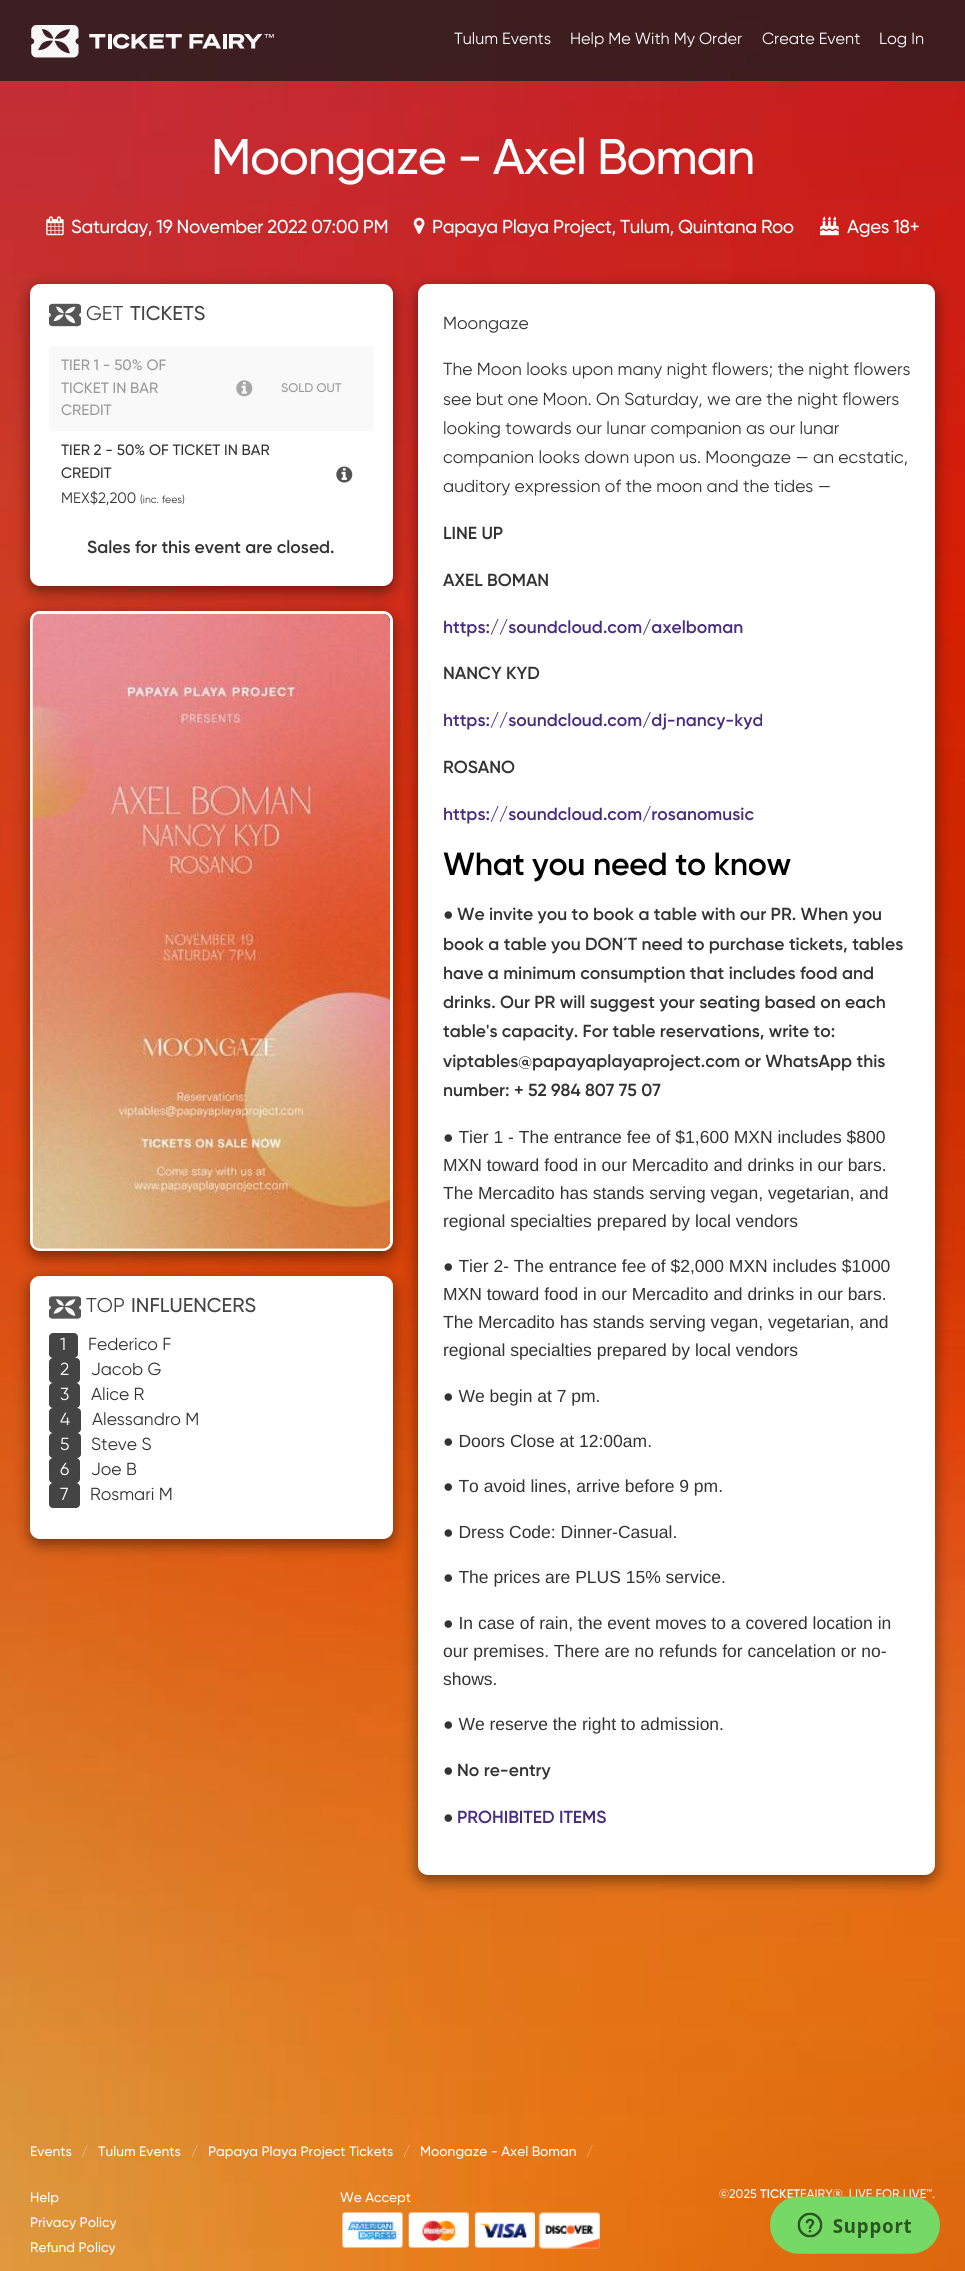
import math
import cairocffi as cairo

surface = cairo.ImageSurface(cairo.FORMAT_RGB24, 965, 2271)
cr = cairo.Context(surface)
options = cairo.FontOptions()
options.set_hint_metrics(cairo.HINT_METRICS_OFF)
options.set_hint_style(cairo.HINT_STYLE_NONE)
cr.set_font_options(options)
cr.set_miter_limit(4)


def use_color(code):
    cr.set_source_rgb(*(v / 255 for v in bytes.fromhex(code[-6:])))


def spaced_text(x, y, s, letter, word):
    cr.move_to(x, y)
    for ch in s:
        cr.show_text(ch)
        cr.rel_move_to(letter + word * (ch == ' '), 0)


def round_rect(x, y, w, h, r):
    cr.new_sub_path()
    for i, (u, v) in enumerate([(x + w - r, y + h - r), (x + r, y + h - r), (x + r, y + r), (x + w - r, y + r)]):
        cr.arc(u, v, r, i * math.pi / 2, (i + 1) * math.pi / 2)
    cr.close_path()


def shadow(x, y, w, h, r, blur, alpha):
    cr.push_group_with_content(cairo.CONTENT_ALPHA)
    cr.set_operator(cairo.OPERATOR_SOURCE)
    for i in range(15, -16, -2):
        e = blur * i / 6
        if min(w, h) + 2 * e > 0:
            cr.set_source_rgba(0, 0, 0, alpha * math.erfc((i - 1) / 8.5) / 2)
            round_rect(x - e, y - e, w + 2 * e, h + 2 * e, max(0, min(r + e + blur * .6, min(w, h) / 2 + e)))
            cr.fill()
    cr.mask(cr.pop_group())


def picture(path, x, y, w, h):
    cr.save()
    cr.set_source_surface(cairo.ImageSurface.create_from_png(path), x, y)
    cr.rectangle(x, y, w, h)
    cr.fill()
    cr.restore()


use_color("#ffffff")
cr.paint()
picture("img1.png", 0, 0, 965, 2271)
cr.set_source_rgba(0.11, 0.11, 0.118, 0.8)
cr.rectangle(0, 0, 965, 81)
cr.fill()
picture("img2.png", 31, 25, 243, 33)
cr.select_font_face("Gilroy")
cr.set_font_size(16.25)
use_color("#ffffff")
cr.move_to(454, 44)
cr.show_text("Tulum Events")
cr.move_to(570, 44)
cr.show_text("Help Me With My Order")
cr.move_to(762, 44)
cr.show_text("Create Event")
cr.move_to(879, 44)
cr.show_text("Log In")
cr.select_font_face("Gilroy Medium")
cr.set_font_size(50)
spaced_text(211, 174, "Moongaze - Axel Boman", -1.25, 0)
picture("img3.png", 46, 216, 18, 20)
cr.set_font_size(18.75)
spaced_text(71, 233, "Saturday, 19 November 2022 07:00 PM", -0.4, 0)
picture("img4.png", 413, 217, 12, 17)
spaced_text(432, 233, "Papaya Playa Project, Tulum, Quintana Roo", -0.4, 0)
picture("img5.png", 820, 216, 19, 20)
spaced_text(847, 233, "Ages 18+", -0.4, 0)
use_color("#000000")
shadow(30, 289, 363, 302, 10, 7.5, 0.5)
use_color("#ffffff")
round_rect(30, 284, 363, 302, 10)
cr.fill()
picture("img6.png", 49, 303, 32, 24)
cr.select_font_face("Gilroy")
cr.set_font_size(20)
use_color("#444444")
cr.move_to(86, 320)
cr.show_text("GET")
cr.select_font_face("Gilroy Medium")
cr.move_to(130, 320)
cr.show_text("TICKETS")
use_color("#f9f9f9")
cr.new_path()
cr.move_to(51.5, 346)
cr.line_to(371.5, 346)
cr.curve_to(373, 346, 374, 347, 374, 348.5)
cr.line_to(374, 431)
cr.line_to(49, 431)
cr.line_to(49, 348.5)
cr.curve_to(49, 347, 50, 346, 51.5, 346)
cr.close_path()
cr.fill()
cr.set_font_size(15)
use_color("#999999")
cr.move_to(61, 370)
cr.show_text("TIER 1 - 50% OF")
cr.move_to(61, 393)
cr.show_text("TICKET IN BAR")
cr.move_to(61, 415)
cr.show_text("CREDIT")
picture("img7.png", 236, 380, 17, 17)
cr.set_font_size(12.5)
cr.move_to(281, 392)
cr.show_text("SOLD OUT")
cr.set_font_size(15)
use_color("#333333")
cr.move_to(61, 455)
cr.show_text("TIER 2 - 50% OF TICKET IN BAR")
cr.move_to(61, 478)
cr.show_text("CREDIT")
cr.select_font_face("Gilroy")
cr.move_to(61, 503)
cr.show_text("MEX$2,200")
cr.set_font_size(10.5)
cr.move_to(140, 503)
cr.show_text("(inc. fees)")
picture("img8.png", 336, 466, 17, 17)
cr.select_font_face("Gilroy SemiBold")
cr.set_font_size(17.5)
cr.move_to(87, 553)
cr.show_text("Sales for this event are closed.")
use_color("#000000")
shadow(30, 1281, 363, 263, 10, 7.5, 0.5)
use_color("#ffffff")
round_rect(30, 1276, 363, 263, 10)
cr.fill()
use_color("#000000")
shadow(30, 616, 363, 640, 10, 7.5, 0.5)
use_color("#000000")
round_rect(31.5, 612.5, 360, 637, 8.5)
cr.fill_preserve()
use_color("#ffffff")
cr.set_line_width(3)
cr.stroke()
picture("img9.png", 32, 613, 358, 636)
picture("img10.png", 49, 1296, 32, 23)
cr.select_font_face("Gilroy")
cr.set_font_size(20)
use_color("#444444")
cr.move_to(86, 1312)
cr.show_text("TOP")
cr.select_font_face("Gilroy Medium")
cr.move_to(131, 1312)
cr.show_text("INFLUENCERS")
round_rect(49, 1333, 29, 25, 4)
cr.fill()
cr.select_font_face("Gilroy")
cr.set_font_size(17.5)
use_color("#ffffff")
cr.move_to(60, 1350)
cr.show_text("1")
use_color("#333333")
cr.move_to(88, 1350)
cr.show_text("Federico F")
use_color("#444444")
round_rect(49, 1358, 31, 25, 4)
cr.fill()
use_color("#ffffff")
cr.move_to(60, 1375)
cr.show_text("2")
use_color("#333333")
cr.move_to(91, 1375)
cr.show_text("Jacob G")
use_color("#444444")
round_rect(49, 1383, 31, 25, 4)
cr.fill()
use_color("#ffffff")
cr.move_to(60, 1400)
cr.show_text("3")
use_color("#333333")
cr.move_to(91, 1400)
cr.show_text("Alice R")
use_color("#444444")
round_rect(49, 1408, 32, 25, 4)
cr.fill()
use_color("#ffffff")
cr.move_to(60, 1425)
cr.show_text("4")
use_color("#333333")
cr.move_to(92, 1425)
cr.show_text("Alessandro M")
use_color("#444444")
round_rect(49, 1433, 32, 25, 4)
cr.fill()
use_color("#ffffff")
cr.move_to(60, 1450)
cr.show_text("5")
use_color("#333333")
cr.move_to(91, 1450)
cr.show_text("Steve S")
use_color("#444444")
round_rect(49, 1458, 31, 25, 4)
cr.fill()
use_color("#ffffff")
cr.move_to(60, 1475)
cr.show_text("6")
use_color("#333333")
cr.move_to(91, 1475)
cr.show_text("Joe B")
use_color("#444444")
round_rect(49, 1483, 31, 25, 4)
cr.fill()
use_color("#ffffff")
cr.move_to(60, 1500)
cr.show_text("7")
use_color("#333333")
cr.move_to(90, 1500)
cr.show_text("Rosmari M")
use_color("#000000")
shadow(418, 289, 517, 1591, 10, 7.5, 0.5)
use_color("#ffffff")
round_rect(418, 284, 517, 1591, 10)
cr.fill()
use_color("#333333")
cr.move_to(443, 329)
cr.show_text("Moongaze")
cr.move_to(443, 375)
cr.show_text("The Moon looks upon many night flowers; the night flowers")
cr.move_to(443, 405)
cr.show_text("see but one Moon. On Saturday, we are the night flowers")
cr.move_to(443, 434)
cr.show_text("looking towards our lunar companion as our lunar")
cr.move_to(443, 463)
cr.show_text("companion looks down upon us. Moongaze — an ecstatic,")
cr.move_to(443, 492)
cr.show_text("auditory expression of the moon and the tides —")
cr.select_font_face("Gilroy SemiBold")
cr.move_to(443, 539)
cr.show_text("LINE UP")
cr.move_to(443, 586)
cr.show_text("AXEL BOMAN")
use_color("#482d7f")
cr.move_to(443, 633)
cr.show_text("https://soundcloud.com/axelboman")
use_color("#333333")
cr.move_to(443, 679)
cr.show_text("NANCY KYD")
use_color("#482d7f")
cr.move_to(443, 726)
cr.show_text("https://soundcloud.com/dj-nancy-kyd")
use_color("#333333")
cr.move_to(443, 773)
cr.show_text("ROSANO")
use_color("#482d7f")
cr.move_to(443, 820)
cr.show_text("https://soundcloud.com/rosanomusic")
cr.set_font_size(32)
use_color("#000000")
spaced_text(443, 875, "What you need to know", -0.3, 0)
cr.select_font_face("Liberation Sans", cairo.FONT_SLANT_NORMAL, cairo.FONT_WEIGHT_BOLD)
cr.set_font_size(17.5)
use_color("#333333")
cr.move_to(443, 920)
cr.show_text("●")
cr.select_font_face("Gilroy SemiBold")
cr.move_to(457, 920)
cr.show_text("We invite you to book a table with our PR. When you")
cr.move_to(443, 950)
cr.show_text("book a table you DON´T need to purchase tickets, tables")
cr.move_to(443, 979)
cr.show_text("have a minimum consumption that includes food and")
cr.move_to(443, 1008)
cr.show_text("drinks. Our PR will suggest your seating based on each")
cr.move_to(443, 1037)
cr.show_text("table's capacity. For table reservations, write to:")
cr.move_to(443, 1067)
cr.show_text("viptables@papayaplayaproject.com or WhatsApp this")
cr.move_to(443, 1096)
cr.show_text("number: + 52 984 807 75 07")
cr.select_font_face("Liberation Sans")
cr.move_to(443, 1143)
cr.show_text("● Tier 1 - The entrance fee of $1,600 MXN includes $800")
cr.move_to(443, 1171)
cr.show_text("MXN toward food in our Mercadito and drinks in our bars.")
cr.move_to(443, 1199)
cr.show_text("The Mercadito has stands serving vegan, vegetarian, and")
cr.move_to(443, 1227)
cr.show_text("regional specialties prepared by local vendors")
cr.move_to(443, 1272)
cr.show_text("● Tier 2- The entrance fee of $2,000 MXN includes $1000")
cr.move_to(443, 1300)
cr.show_text("MXN toward food in our Mercadito and drinks in our bars.")
cr.move_to(443, 1328)
cr.show_text("The Mercadito has stands serving vegan, vegetarian, and")
cr.move_to(443, 1356)
cr.show_text("regional specialties prepared by local vendors")
cr.move_to(443, 1402)
cr.show_text("● We begin at 7 pm.")
cr.move_to(443, 1447)
cr.show_text("● Doors Close at 12:00am.")
cr.move_to(443, 1492)
cr.show_text("● To avoid lines, arrive before 9 pm.")
cr.move_to(443, 1538)
cr.show_text("● Dress Code: Dinner-Casual.")
cr.move_to(443, 1583)
cr.show_text("● The prices are PLUS 15% service.")
cr.move_to(443, 1629)
cr.show_text("● In case of rain, the event moves to a covered location in")
cr.move_to(443, 1657)
cr.show_text("our premises. There are no refunds for cancelation or no-")
cr.move_to(443, 1685)
cr.show_text("shows.")
cr.move_to(443, 1730)
cr.show_text("● We reserve the right to admission.")
cr.select_font_face("Liberation Sans", cairo.FONT_SLANT_NORMAL, cairo.FONT_WEIGHT_BOLD)
cr.move_to(443, 1776)
cr.show_text("●")
cr.select_font_face("Gilroy SemiBold")
cr.move_to(457, 1776)
cr.show_text("No re-entry")
cr.select_font_face("Liberation Sans", cairo.FONT_SLANT_NORMAL, cairo.FONT_WEIGHT_BOLD)
cr.move_to(443, 1823)
cr.show_text("●")
cr.select_font_face("Gilroy SemiBold")
use_color("#482d7f")
cr.move_to(457, 1823)
cr.show_text("PROHIBITED ITEMS")
cr.select_font_face("Gilroy Medium")
cr.set_font_size(13.75)
use_color("#ffffff")
cr.move_to(30, 2156)
cr.show_text("Events")
use_color("#ecbd86")
cr.move_to(81, 2156)
cr.show_text("/")
use_color("#ffffff")
cr.move_to(98, 2156)
cr.show_text("Tulum Events")
use_color("#ecbd86")
cr.move_to(191, 2156)
cr.show_text("/")
use_color("#ffffff")
cr.move_to(208, 2156)
cr.show_text("Papaya Playa Project Tickets")
use_color("#efb178")
cr.move_to(403, 2156)
cr.show_text("/")
use_color("#ffffff")
cr.move_to(420, 2156)
cr.show_text("Moongaze - Axel Boman")
use_color("#f0ac72")
cr.move_to(586, 2156)
cr.show_text("/")
use_color("#ffffff")
cr.move_to(30, 2202)
cr.show_text("Help")
cr.move_to(30, 2227)
cr.show_text("Privacy Policy")
cr.move_to(30, 2252)
cr.show_text("Refund Policy")
cr.move_to(340, 2202)
cr.show_text("We Accept")
picture("img11.png", 342, 2212, 61, 36)
picture("img12.png", 408, 2212, 61, 36)
picture("img13.png", 474, 2212, 61, 36)
picture("img14.png", 538, 2212, 62, 37)
cr.set_font_size(12.5)
use_color("#f7f7f7")
cr.move_to(719, 2198)
cr.show_text("©2025")
cr.select_font_face("Gilroy SemiBold")
cr.move_to(760, 2198)
cr.show_text("TICKET")
cr.select_font_face("Gilroy Medium")
cr.move_to(800, 2198)
cr.show_text("FAIRY®. LIVE FOR LIVE™.")
picture("img15.png", 770, 2196, 170, 58)
surface.write_to_png("result.png")
